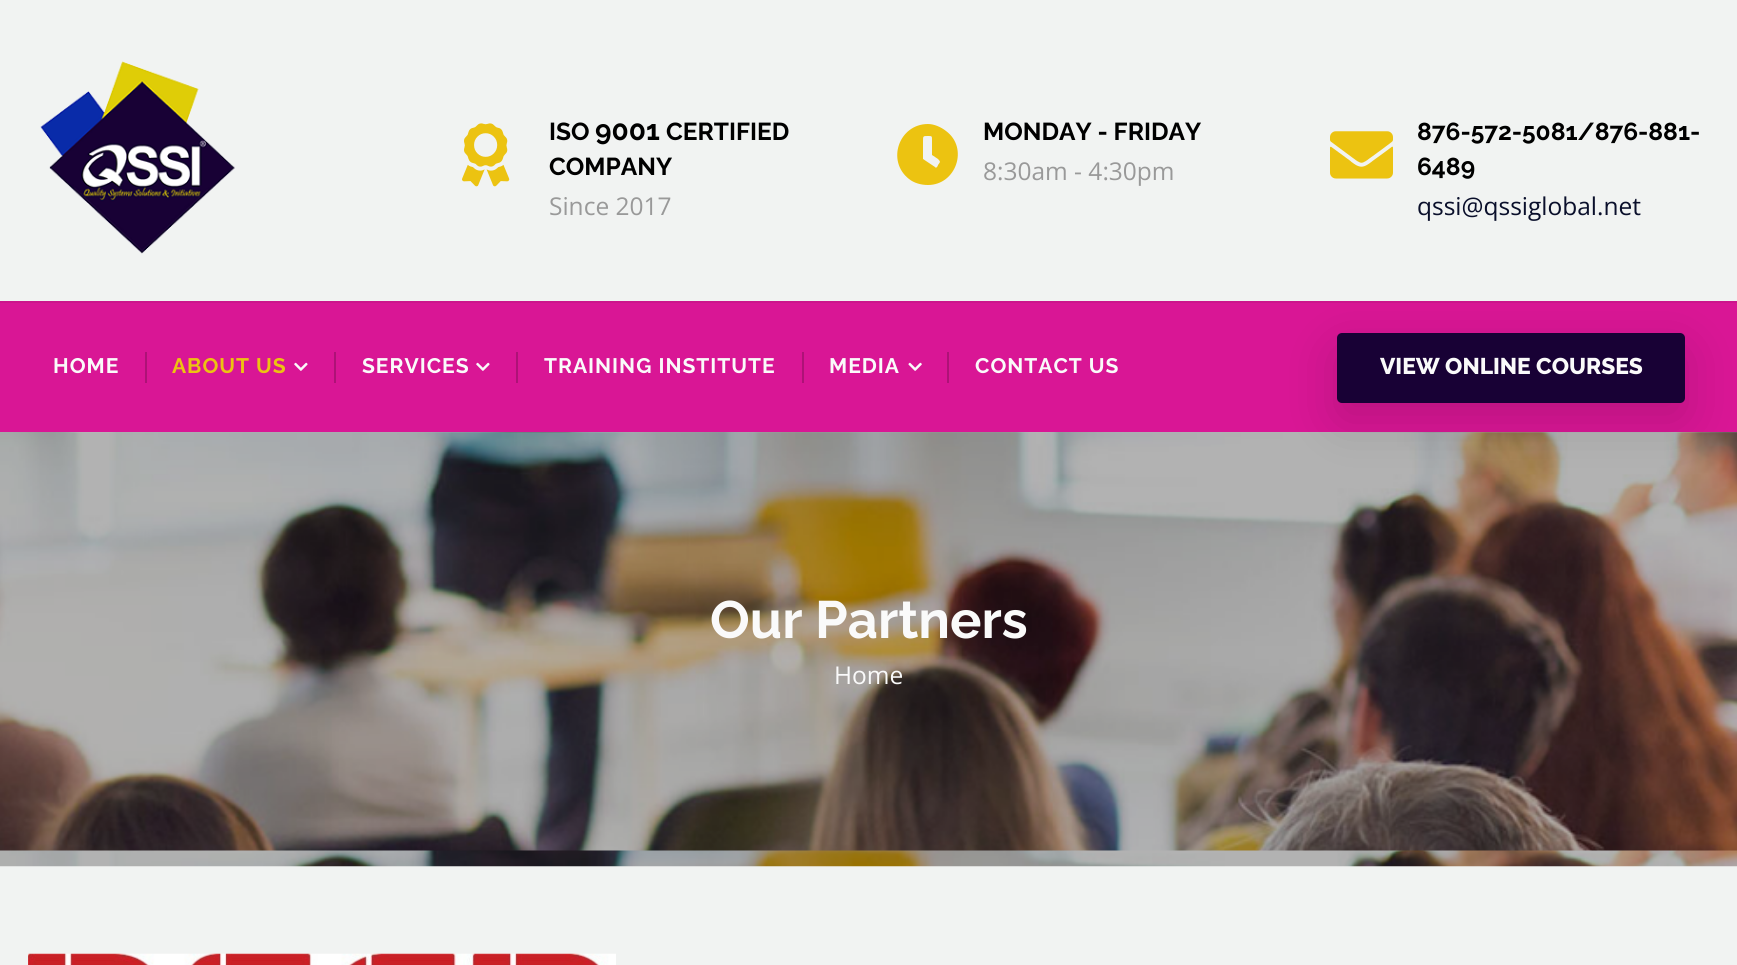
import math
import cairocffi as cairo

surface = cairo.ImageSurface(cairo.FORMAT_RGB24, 1737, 965)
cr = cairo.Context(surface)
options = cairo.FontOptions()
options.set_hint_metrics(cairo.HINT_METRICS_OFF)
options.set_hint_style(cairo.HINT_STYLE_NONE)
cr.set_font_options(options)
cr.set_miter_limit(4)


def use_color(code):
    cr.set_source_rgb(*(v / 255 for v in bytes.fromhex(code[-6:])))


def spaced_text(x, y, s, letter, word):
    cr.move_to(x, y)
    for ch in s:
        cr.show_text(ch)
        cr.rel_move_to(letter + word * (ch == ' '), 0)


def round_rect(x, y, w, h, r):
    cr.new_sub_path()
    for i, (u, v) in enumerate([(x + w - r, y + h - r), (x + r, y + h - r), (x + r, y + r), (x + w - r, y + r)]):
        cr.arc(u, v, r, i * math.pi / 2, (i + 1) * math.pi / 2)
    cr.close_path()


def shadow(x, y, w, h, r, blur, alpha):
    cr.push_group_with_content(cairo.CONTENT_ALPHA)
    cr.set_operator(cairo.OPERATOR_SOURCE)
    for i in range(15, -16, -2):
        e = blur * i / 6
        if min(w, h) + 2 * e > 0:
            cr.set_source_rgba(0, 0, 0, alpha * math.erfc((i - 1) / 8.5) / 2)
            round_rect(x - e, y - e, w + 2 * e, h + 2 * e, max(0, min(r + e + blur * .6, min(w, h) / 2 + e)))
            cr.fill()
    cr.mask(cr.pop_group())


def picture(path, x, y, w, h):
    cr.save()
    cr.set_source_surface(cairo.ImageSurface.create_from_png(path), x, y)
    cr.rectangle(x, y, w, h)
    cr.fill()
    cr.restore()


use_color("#f1f3f2")
cr.paint()
picture("img1.png", 40, 61, 195, 193)
picture("img2.png", 462, 123, 48, 64)
cr.select_font_face("Raleway", cairo.FONT_SLANT_NORMAL, cairo.FONT_WEIGHT_BOLD)
cr.set_font_size(24.5)
use_color("#000000")
cr.move_to(549, 140)
cr.show_text("ISO")
cr.set_font_size(28)
cr.move_to(595, 140)
cr.show_text("9001")
cr.set_font_size(24.5)
cr.move_to(666, 140)
cr.show_text("CERTIFIED")
cr.move_to(549, 175)
cr.show_text("COMPANY")
cr.select_font_face("Open Sans")
use_color("#999999")
cr.move_to(549, 215)
cr.show_text("Since 2017")
use_color("#ecc311")
cr.new_path()
cr.move_to(928, 124)
cr.curve_to(899, 124, 886, 161, 909, 179)
cr.curve_to(914, 183, 921, 185, 928, 185)
cr.curve_to(956, 185, 969, 148, 946, 131)
cr.curve_to(941, 127, 934, 124, 928, 124)
cr.close_path()
cr.move_to(935, 167)
cr.line_to(923, 159)
cr.line_to(923, 141)
cr.curve_to(923, 136, 923, 136, 928, 136)
cr.curve_to(932, 136, 932, 136, 932, 140)
cr.line_to(932, 155)
cr.line_to(938, 159)
cr.curve_to(941, 162, 940, 162, 938, 165)
cr.curve_to(938, 166, 936, 169, 935, 167)
cr.close_path()
cr.fill()
cr.select_font_face("Raleway", cairo.FONT_SLANT_NORMAL, cairo.FONT_WEIGHT_BOLD)
use_color("#000000")
cr.move_to(983, 140)
cr.show_text("MONDAY - FRIDAY")
cr.select_font_face("Open Sans")
use_color("#999999")
cr.move_to(983, 180)
cr.show_text("8:30am - 4:30pm")
picture("img3.png", 1330, 131, 63, 48)
cr.select_font_face("Raleway", cairo.FONT_SLANT_NORMAL, cairo.FONT_WEIGHT_BOLD)
use_color("#000000")
cr.move_to(1417, 140)
cr.show_text("876-572-5081/876-881-")
cr.move_to(1417, 175)
cr.show_text("6489")
cr.select_font_face("Open Sans")
use_color("#0a0f2b")
cr.move_to(1417, 215)
cr.show_text("qssi@qssiglobal.net")
use_color("#d91695")
cr.rectangle(0, 303, 1737, 129)
cr.fill()
use_color("#cc158c")
cr.rectangle(0, 301, 1737, 2)
cr.fill()
cr.select_font_face("Raleway", cairo.FONT_SLANT_NORMAL, cairo.FONT_WEIGHT_BOLD)
cr.set_font_size(21)
use_color("#fafafa")
spaced_text(53, 373, "HOME", 1, 0)
use_color("#ae1277")
cr.rectangle(145, 352, 2, 31)
cr.fill()
use_color("#ecc311")
spaced_text(172, 373, "ABOUT US", 1, 0)
picture("img4.png", 294, 362, 14, 9)
use_color("#ae1277")
cr.rectangle(334, 352, 2, 31)
cr.fill()
use_color("#fafafa")
spaced_text(362, 373, "SERVICES", 1, 0)
picture("img4.png", 476, 362, 14, 9)
use_color("#ae1277")
cr.rectangle(516, 352, 2, 31)
cr.fill()
use_color("#fafafa")
spaced_text(544, 373, "TRAINING INSTITUTE", 1, 0)
use_color("#ae1277")
cr.rectangle(802, 352, 2, 31)
cr.fill()
use_color("#fafafa")
spaced_text(829, 373, "MEDIA", 1, 0)
picture("img5.png", 908, 362, 14, 9)
use_color("#ae1277")
cr.rectangle(947, 352, 2, 31)
cr.fill()
use_color("#fafafa")
spaced_text(975, 373, "CONTACT US", 1, 0)
picture("img6.png", 0, 432, 1737, 435)
picture("img7.png", 0, 432, 1737, 419)
use_color("#000000")
shadow(1337, 350, 348, 70, 5, 26, 0.15)
use_color("#180135")
round_rect(1337, 333, 348, 70, 5)
cr.fill()
cr.select_font_face("Raleway ExtraBold")
cr.set_font_size(22.75)
use_color("#fafafa")
cr.move_to(1380, 374)
cr.show_text("VIEW ONLINE COURSES")
cr.select_font_face("Raleway", cairo.FONT_SLANT_NORMAL, cairo.FONT_WEIGHT_BOLD)
cr.set_font_size(52.5)
cr.move_to(710, 638)
cr.show_text("Our Partners")
cr.select_font_face("Open Sans")
cr.set_font_size(24.5)
cr.move_to(834, 684)
cr.show_text("Home")
picture("img8.png", 28, 953, 588, 12)
surface.write_to_png("result.png")
